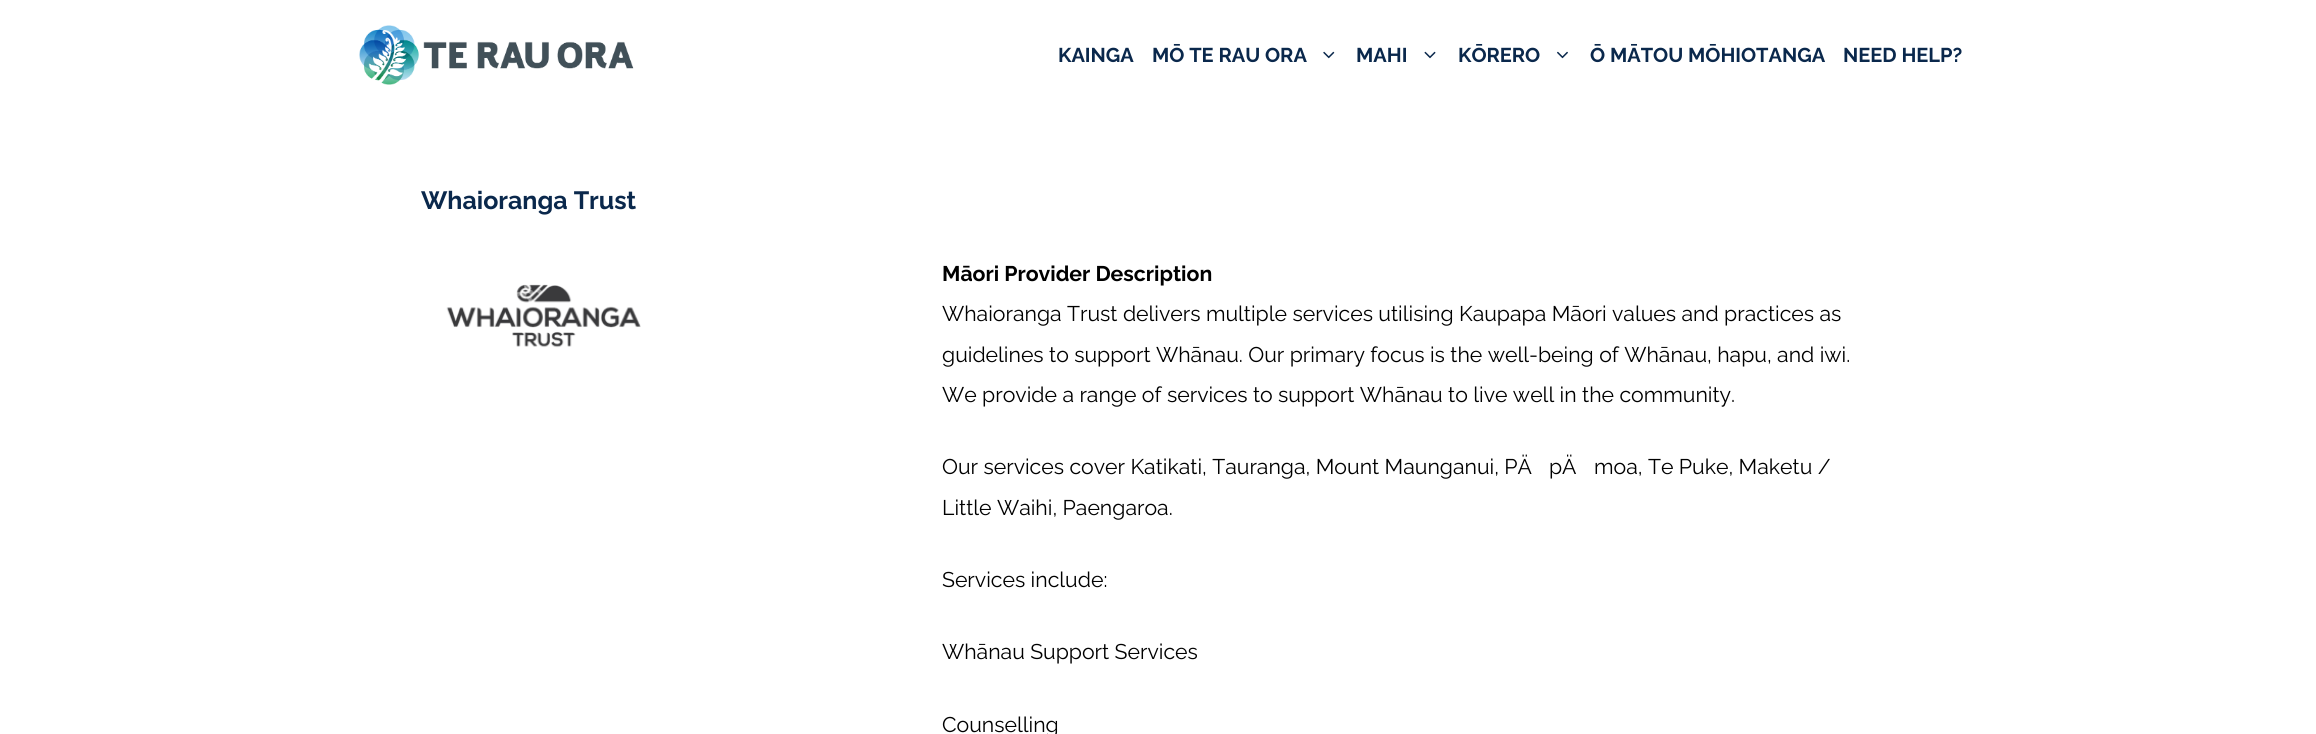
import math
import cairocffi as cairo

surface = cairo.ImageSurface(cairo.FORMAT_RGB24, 2316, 734)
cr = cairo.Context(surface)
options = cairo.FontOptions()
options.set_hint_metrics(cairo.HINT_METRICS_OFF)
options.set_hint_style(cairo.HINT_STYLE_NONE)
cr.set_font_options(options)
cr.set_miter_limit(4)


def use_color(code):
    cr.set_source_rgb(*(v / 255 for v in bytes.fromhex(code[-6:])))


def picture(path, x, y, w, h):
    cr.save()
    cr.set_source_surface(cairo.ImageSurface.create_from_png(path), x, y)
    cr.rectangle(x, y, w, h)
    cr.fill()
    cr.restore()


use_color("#ffffff")
cr.paint()
picture("img1.png", 359, 25, 275, 60)
cr.select_font_face("Raleway", cairo.FONT_SLANT_NORMAL, cairo.FONT_WEIGHT_BOLD)
cr.set_font_size(20)
use_color("#0a284c")
cr.move_to(1058, 62)
cr.show_text("KAINGA")
cr.move_to(1152, 62)
cr.show_text("MŌ TE RAU ORA")
picture("img2.png", 1323, 51, 12, 8)
cr.move_to(1356, 62)
cr.show_text("MAHI")
picture("img3.png", 1424, 51, 12, 8)
cr.move_to(1458, 62)
cr.show_text("KŌRERO")
picture("img4.png", 1557, 51, 11, 8)
cr.move_to(1590, 62)
cr.show_text("Ō MĀTOU MŌHIOTANGA")
cr.move_to(1843, 62)
cr.show_text("NEED HELP?")
cr.set_font_size(25)
cr.move_to(421, 209)
cr.show_text("Whaioranga Trust")
picture("img5.png", 446, 284, 195, 64)
cr.set_font_size(21.25)
use_color("#000000")
cr.move_to(942, 281)
cr.show_text("Māori Provider Description")
cr.select_font_face("Raleway")
cr.move_to(942, 321)
cr.show_text("Whaioranga Trust delivers multiple services utilising Kaupapa Māori values and practices as")
cr.move_to(942, 362)
cr.show_text("guidelines to support Whānau. Our primary focus is the well-being of Whānau, hapu, and iwi.")
cr.move_to(942, 402)
cr.show_text("We provide a range of services to support Whānau to live well in the community.")
cr.move_to(942, 474)
cr.show_text("Our services cover Katikati, Tauranga, Mount Maunganui, PÄ")
cr.move_to(1549, 474)
cr.show_text("pÄ")
cr.move_to(1594, 474)
cr.show_text("moa, Te Puke, Maketu /")
cr.move_to(942, 515)
cr.show_text("Little Waihi, Paengaroa.")
cr.move_to(942, 587)
cr.show_text("Services include:")
cr.move_to(942, 659)
cr.show_text("Whānau Support Services")
cr.move_to(942, 732)
cr.show_text("Counselling")
surface.write_to_png("result.png")
